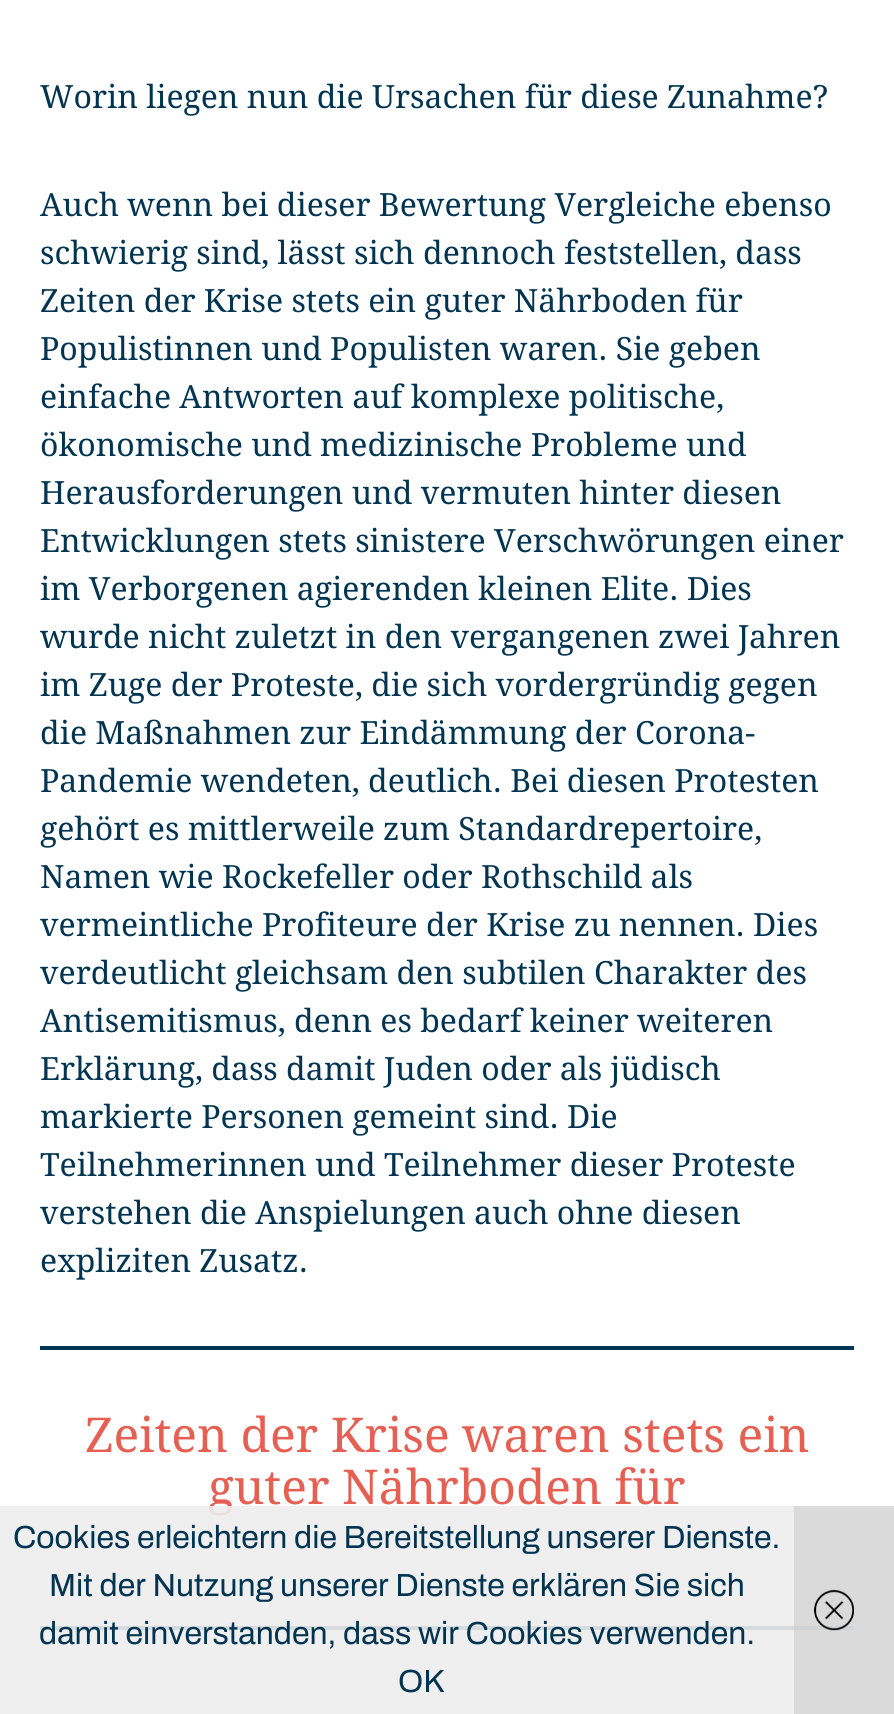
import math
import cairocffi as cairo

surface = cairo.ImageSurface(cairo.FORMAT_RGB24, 894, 1714)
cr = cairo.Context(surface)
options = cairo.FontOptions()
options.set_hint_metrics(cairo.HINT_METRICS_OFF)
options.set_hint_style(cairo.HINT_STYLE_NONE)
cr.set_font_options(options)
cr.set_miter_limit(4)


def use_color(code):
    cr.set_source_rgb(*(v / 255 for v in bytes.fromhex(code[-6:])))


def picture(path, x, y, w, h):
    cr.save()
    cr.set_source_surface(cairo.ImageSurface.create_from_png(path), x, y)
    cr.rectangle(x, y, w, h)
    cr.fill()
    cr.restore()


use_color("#ffffff")
cr.paint()
cr.select_font_face("Droid Serif")
cr.set_font_size(32)
use_color("#013451")
cr.move_to(40, 108)
cr.show_text("Worin liegen nun die Ursachen für diese Zunahme?")
cr.move_to(40, 216)
cr.show_text("Auch wenn bei dieser Bewertung Vergleiche ebenso")
cr.move_to(40, 264)
cr.show_text("schwierig sind, lässt sich dennoch feststellen, dass")
cr.move_to(40, 312)
cr.show_text("Zeiten der Krise stets ein guter Nährboden für")
cr.move_to(40, 360)
cr.show_text("Populistinnen und Populisten waren. Sie geben")
cr.move_to(40, 408)
cr.show_text("einfache Antworten auf komplexe politische,")
cr.move_to(40, 456)
cr.show_text("ökonomische und medizinische Probleme und")
cr.move_to(40, 504)
cr.show_text("Herausforderungen und vermuten hinter diesen")
cr.move_to(40, 552)
cr.show_text("Entwicklungen stets sinistere Verschwörungen einer")
cr.move_to(40, 600)
cr.show_text("im Verborgenen agierenden kleinen Elite. Dies")
cr.move_to(40, 648)
cr.show_text("wurde nicht zuletzt in den vergangenen zwei Jahren")
cr.move_to(40, 696)
cr.show_text("im Zuge der Proteste, die sich vordergründig gegen")
cr.move_to(40, 744)
cr.show_text("die Maßnahmen zur Eindämmung der Corona-")
cr.move_to(40, 792)
cr.show_text("Pandemie wendeten, deutlich. Bei diesen Protesten")
cr.move_to(40, 840)
cr.show_text("gehört es mittlerweile zum Standardrepertoire,")
cr.move_to(40, 888)
cr.show_text("Namen wie Rockefeller oder Rothschild als")
cr.move_to(40, 936)
cr.show_text("vermeintliche Profiteure der Krise zu nennen. Dies")
cr.move_to(40, 984)
cr.show_text("verdeutlicht gleichsam den subtilen Charakter des")
cr.move_to(40, 1032)
cr.show_text("Antisemitismus, denn es bedarf keiner weiteren")
cr.move_to(40, 1080)
cr.show_text("Erklärung, dass damit Juden oder als jüdisch")
cr.move_to(40, 1128)
cr.show_text("markierte Personen gemeint sind. Die")
cr.move_to(40, 1176)
cr.show_text("Teilnehmerinnen und Teilnehmer dieser Proteste")
cr.move_to(40, 1224)
cr.show_text("verstehen die Anspielungen auch ohne diesen")
cr.move_to(40, 1272)
cr.show_text("expliziten Zusatz.")
use_color("#003756")
cr.rectangle(40, 1346, 814, 4)
cr.fill()
cr.rectangle(40, 1626, 814, 4)
cr.fill()
cr.set_font_size(48)
use_color("#e55f53")
cr.move_to(85, 1452)
cr.show_text("Zeiten der Krise waren stets ein")
cr.move_to(208, 1504)
cr.show_text("guter Nährboden für")
cr.set_source_rgba(0.933, 0.933, 0.933, 0.9)
cr.rectangle(0, 1506, 894, 208)
cr.fill()
cr.select_font_face("Archivo")
cr.set_font_size(32)
use_color("#013451")
cr.move_to(13, 1548)
cr.show_text("Cookies erleichtern die Bereitstellung unserer Dienste.")
cr.move_to(49, 1596)
cr.show_text("Mit der Nutzung unserer Dienste erklären Sie sich")
cr.move_to(39, 1644)
cr.show_text("damit einverstanden, dass wir Cookies verwenden.")
cr.move_to(398, 1692)
cr.show_text("OK")
cr.set_source_rgba(0.8, 0.8, 0.8, 0.6)
cr.rectangle(794, 1506, 100, 208)
cr.fill()
picture("img1.png", 814, 1589, 40, 42)
surface.write_to_png("result.png")
